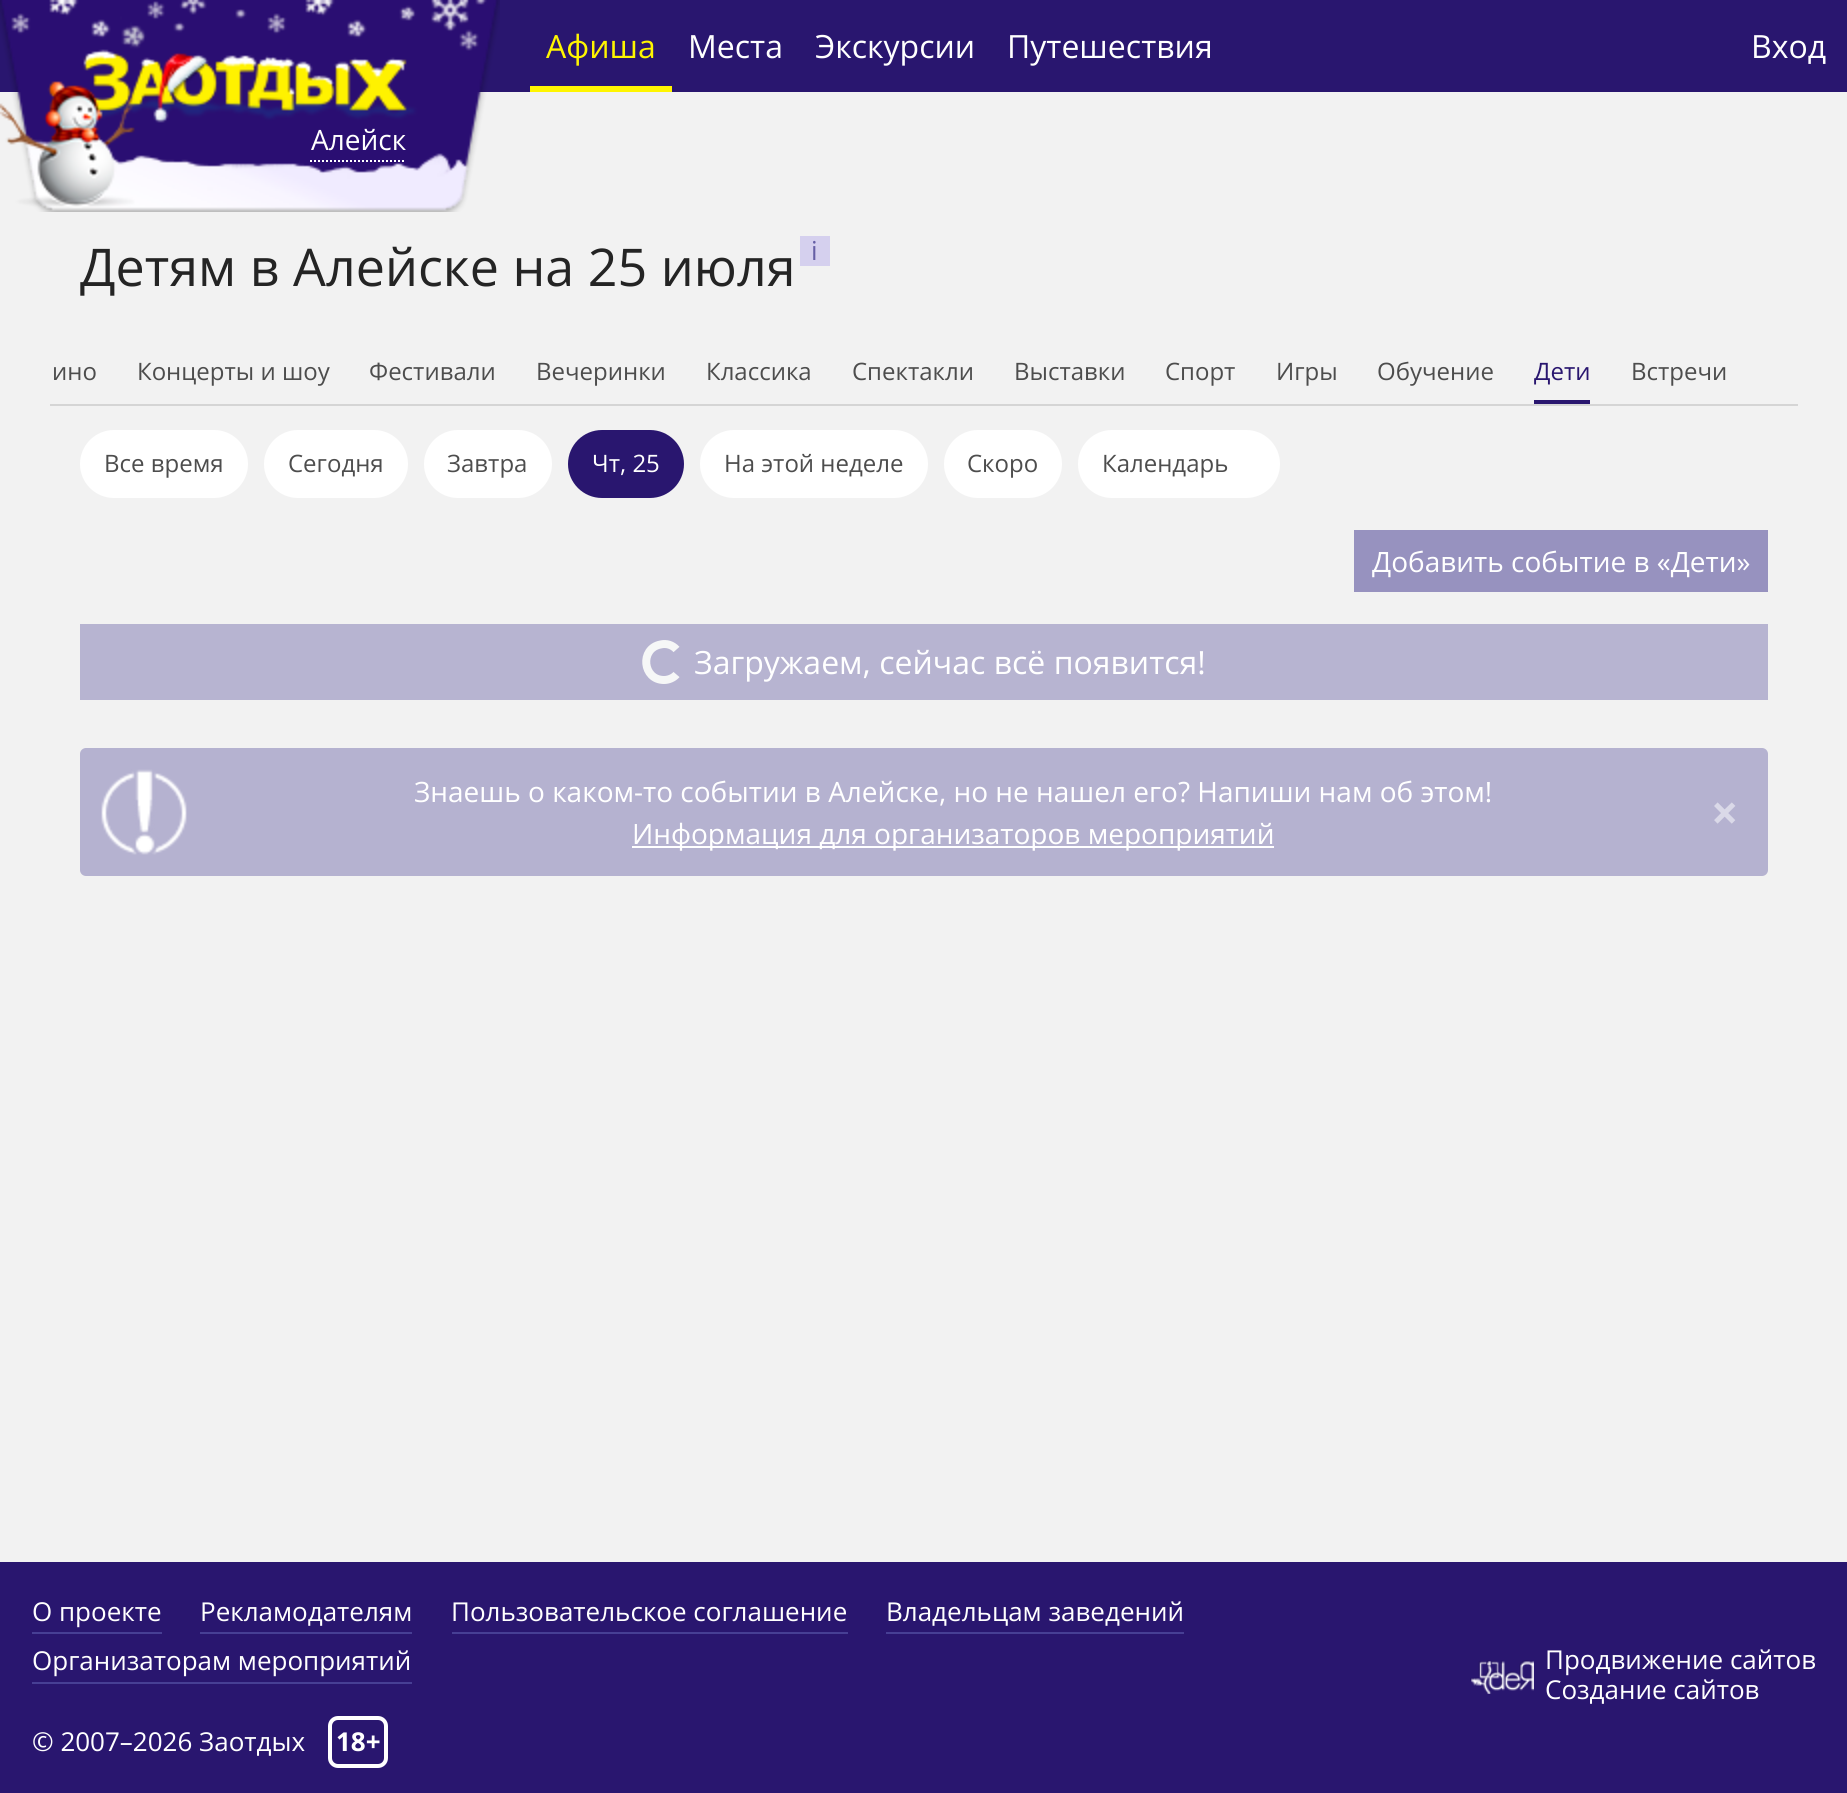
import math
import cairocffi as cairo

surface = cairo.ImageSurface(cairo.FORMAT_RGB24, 1847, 1793)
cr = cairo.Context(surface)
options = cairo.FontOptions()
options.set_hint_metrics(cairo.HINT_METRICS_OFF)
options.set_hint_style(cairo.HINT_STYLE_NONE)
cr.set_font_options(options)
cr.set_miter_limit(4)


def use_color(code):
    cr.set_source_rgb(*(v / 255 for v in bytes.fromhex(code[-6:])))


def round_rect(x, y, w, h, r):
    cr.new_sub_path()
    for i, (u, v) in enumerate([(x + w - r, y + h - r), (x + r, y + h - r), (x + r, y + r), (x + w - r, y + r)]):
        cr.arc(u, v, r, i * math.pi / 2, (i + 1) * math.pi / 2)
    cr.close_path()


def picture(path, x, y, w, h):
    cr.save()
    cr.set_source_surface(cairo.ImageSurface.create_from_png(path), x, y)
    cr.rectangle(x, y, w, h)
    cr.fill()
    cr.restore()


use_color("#f2f2f2")
cr.paint()
use_color("#29166f")
cr.rectangle(0, 0, 1847, 92)
cr.fill()
use_color("#fff500")
cr.rectangle(530, 86, 142, 6)
cr.fill()
cr.select_font_face("Open Sans")
cr.set_font_size(32)
cr.move_to(546, 58)
cr.show_text("Афиша")
use_color("#ffffff")
cr.move_to(688, 58)
cr.show_text("Места")
cr.move_to(815, 58)
cr.show_text("Экскурсии")
cr.move_to(1007, 58)
cr.show_text("Путешествия")
cr.move_to(1751, 58)
cr.show_text("Вход")
picture("img1.png", 0, 0, 500, 212)
cr.new_path()
cr.move_to(310, 161)
cr.line_to(406, 161)
cr.set_dash([2, 2])
cr.stroke()
cr.set_font_size(28)
cr.move_to(311, 150)
cr.show_text("Алейск")
cr.set_font_size(52)
use_color("#242424")
cr.move_to(80, 286)
cr.show_text("Детям в Алейске на 25 июля")
use_color("#d5d0ee")
cr.rectangle(800, 236, 30, 30)
cr.fill()
cr.set_font_size(26)
use_color("#665fa5")
cr.move_to(811, 260)
cr.show_text("i")
use_color("#d5d5d5")
cr.rectangle(50, 404, 1748, 2)
cr.fill()
cr.set_font_size(24)
use_color("#4d4d4d")
cr.move_to(52, 380)
cr.show_text("ино")
cr.move_to(137, 380)
cr.show_text("Концерты и шоу")
cr.move_to(369, 380)
cr.show_text("Фестивали")
cr.move_to(536, 380)
cr.show_text("Вечеринки")
cr.move_to(706, 380)
cr.show_text("Классика")
cr.move_to(852, 380)
cr.show_text("Спектакли")
cr.move_to(1014, 380)
cr.show_text("Выставки")
cr.move_to(1165, 380)
cr.show_text("Спорт")
cr.move_to(1276, 380)
cr.show_text("Игры")
cr.move_to(1377, 380)
cr.show_text("Обучение")
use_color("#29166f")
cr.rectangle(1534, 400, 56, 4)
cr.fill()
cr.move_to(1534, 380)
cr.show_text("Дети")
use_color("#4d4d4d")
cr.move_to(1631, 380)
cr.show_text("Встречи")
use_color("#ffffff")
round_rect(80, 430, 168, 68, 34)
cr.fill()
use_color("#4d4d4d")
cr.move_to(104, 472)
cr.show_text("Все время")
use_color("#ffffff")
round_rect(264, 430, 144, 68, 34)
cr.fill()
use_color("#4d4d4d")
cr.move_to(288, 472)
cr.show_text("Сегодня")
use_color("#ffffff")
round_rect(424, 430, 128, 68, 34)
cr.fill()
use_color("#4d4d4d")
cr.move_to(447, 472)
cr.show_text("Завтра")
use_color("#29166f")
round_rect(568, 430, 116, 68, 34)
cr.fill()
use_color("#ffffff")
cr.move_to(592, 472)
cr.show_text("Чт, 25")
round_rect(700, 430, 228, 68, 34)
cr.fill()
use_color("#4d4d4d")
cr.move_to(724, 472)
cr.show_text("На этой неделе")
use_color("#ffffff")
round_rect(944, 430, 118, 68, 34)
cr.fill()
use_color("#4d4d4d")
cr.move_to(967, 472)
cr.show_text("Скоро")
use_color("#ffffff")
round_rect(1078, 430, 202, 68, 34)
cr.fill()
use_color("#4d4d4d")
cr.move_to(1102, 472)
cr.show_text("Календарь")
use_color("#9792bf")
cr.rectangle(1354, 530, 414, 62)
cr.fill()
cr.set_font_size(28)
use_color("#ffffff")
cr.move_to(1372, 572)
cr.show_text("Добавить событие в «Дети»")
use_color("#b7b4d1")
cr.rectangle(80, 624, 1688, 76)
cr.fill()
cr.new_path()
cr.move_to(676.5, 674.5)
cr.curve_to(673.5, 678, 668.5, 680, 664, 680)
cr.curve_to(642.5, 680, 639.5, 648.5, 660.5, 644.5)
cr.curve_to(666.5, 643, 672.5, 645, 676.5, 649.5)
use_color("#f6f7f7")
cr.set_line_width(8)
cr.set_dash([])
cr.stroke()
cr.set_font_size(32)
use_color("#ffffff")
cr.move_to(694, 674)
cr.show_text("Загружаем, сейчас всё появится!")
use_color("#b5b2d0")
round_rect(80, 748, 1688, 128, 6)
cr.fill()
picture("img2.png", 101, 769, 86, 86)
cr.set_font_size(28)
use_color("#ffffff")
cr.move_to(414, 802)
cr.show_text("Знаешь о каком-то событии в Алейске, но не нашел его? Напиши нам об этом!")
cr.rectangle(632, 846, 642, 2)
cr.fill()
cr.move_to(632, 844)
cr.show_text("Информация для организаторов мероприятий")
cr.select_font_face("Open Sans", cairo.FONT_SLANT_NORMAL, cairo.FONT_WEIGHT_BOLD)
cr.set_font_size(48)
use_color("#dad9e8")
cr.move_to(1711, 830)
cr.show_text("×")
use_color("#29166f")
cr.rectangle(0, 1562, 1847, 231)
cr.fill()
use_color("#473f94")
cr.rectangle(32, 1632, 130, 2)
cr.fill()
cr.select_font_face("Open Sans")
cr.set_font_size(26)
use_color("#ffffff")
cr.move_to(32, 1621)
cr.show_text("О проекте")
use_color("#473f94")
cr.rectangle(200, 1632, 212, 2)
cr.fill()
use_color("#ffffff")
cr.move_to(200, 1621)
cr.show_text("Рекламодателям")
use_color("#473f94")
cr.rectangle(452, 1632, 396, 2)
cr.fill()
use_color("#ffffff")
cr.move_to(451, 1621)
cr.show_text("Пользовательское соглашение")
use_color("#473f94")
cr.rectangle(886, 1632, 298, 2)
cr.fill()
use_color("#ffffff")
cr.move_to(886, 1621)
cr.show_text("Владельцам заведений")
use_color("#473f94")
cr.rectangle(32, 1682, 380, 2)
cr.fill()
use_color("#ffffff")
cr.move_to(32, 1670)
cr.show_text("Организаторам мероприятий")
cr.move_to(32, 1751)
cr.show_text("© 2007–2026 Заотдых")
round_rect(330, 1718, 56, 48, 8)
cr.set_line_width(4)
cr.stroke()
cr.select_font_face("Open Sans", cairo.FONT_SLANT_NORMAL, cairo.FONT_WEIGHT_BOLD)
cr.move_to(336, 1751)
cr.show_text("18+")
picture("img3.png", 1470, 1660, 64, 34)
cr.select_font_face("Open Sans")
cr.move_to(1545, 1669)
cr.show_text("Продвижение сайтов")
cr.move_to(1545, 1699)
cr.show_text("Создание сайтов")
surface.write_to_png("result.png")
